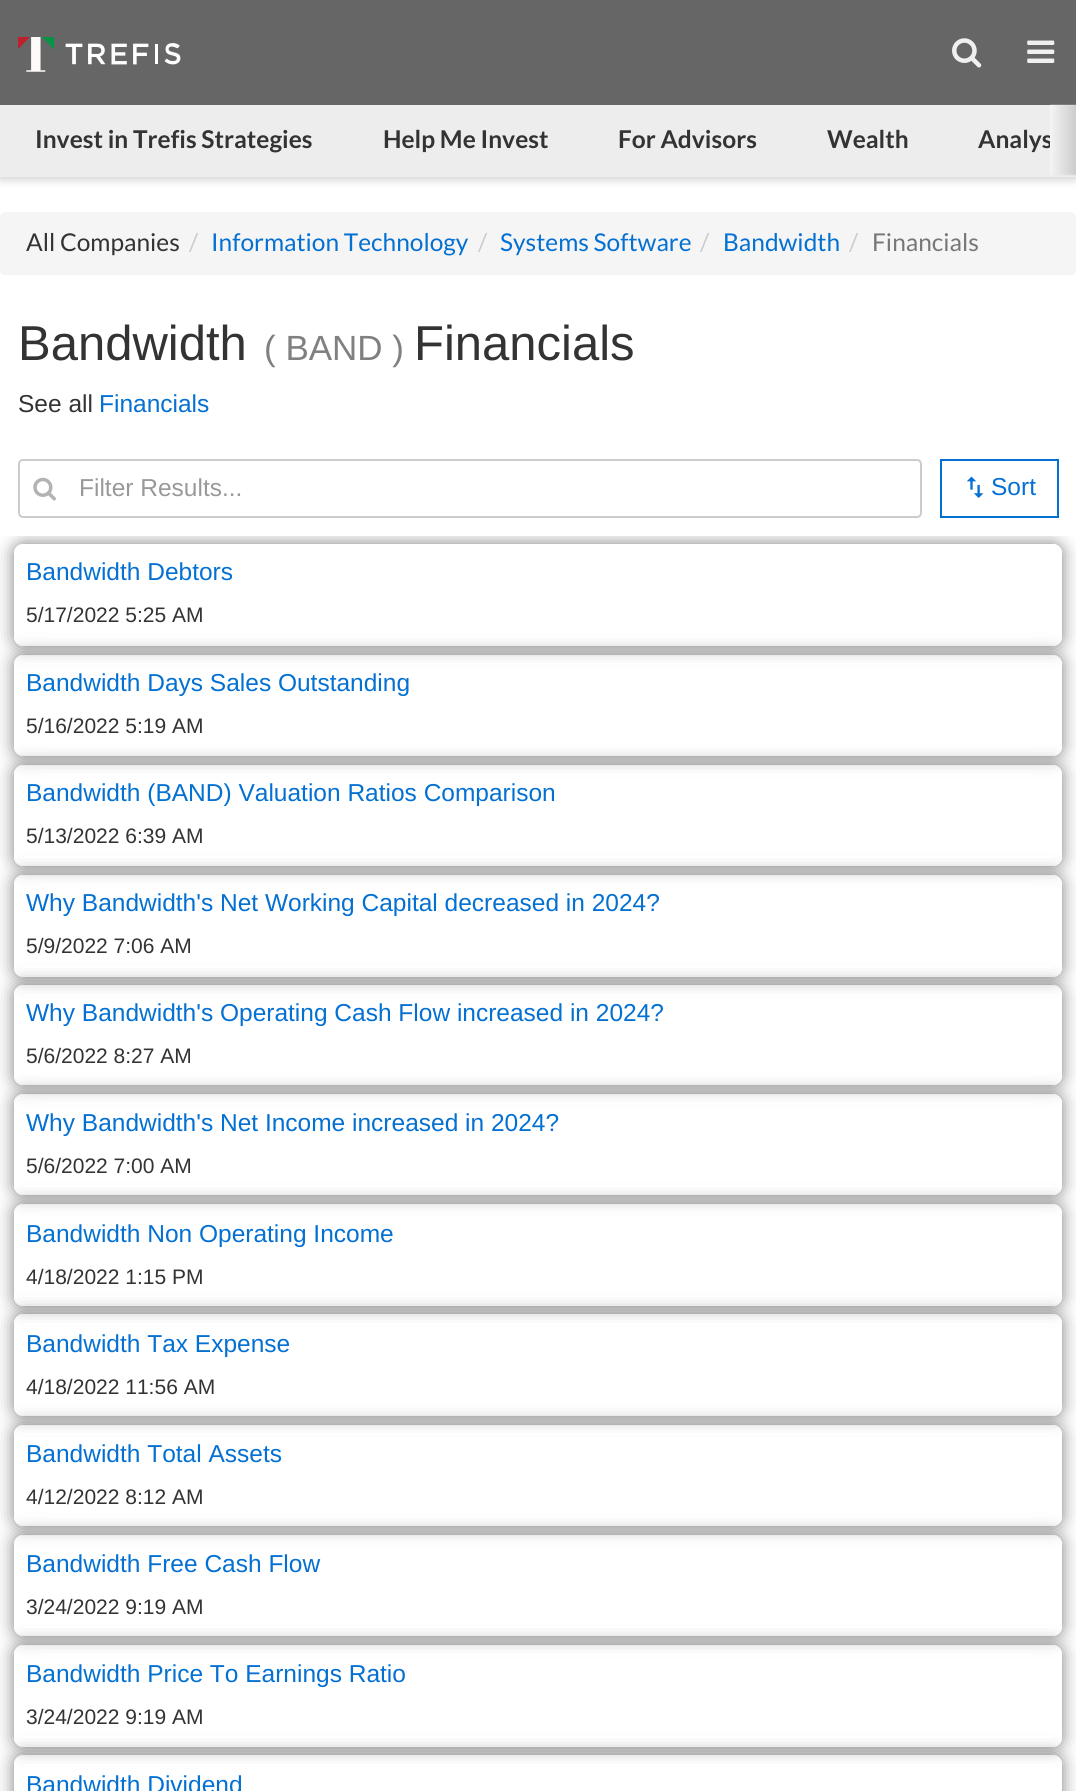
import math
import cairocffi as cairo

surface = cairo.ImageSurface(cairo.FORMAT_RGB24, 1076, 1791)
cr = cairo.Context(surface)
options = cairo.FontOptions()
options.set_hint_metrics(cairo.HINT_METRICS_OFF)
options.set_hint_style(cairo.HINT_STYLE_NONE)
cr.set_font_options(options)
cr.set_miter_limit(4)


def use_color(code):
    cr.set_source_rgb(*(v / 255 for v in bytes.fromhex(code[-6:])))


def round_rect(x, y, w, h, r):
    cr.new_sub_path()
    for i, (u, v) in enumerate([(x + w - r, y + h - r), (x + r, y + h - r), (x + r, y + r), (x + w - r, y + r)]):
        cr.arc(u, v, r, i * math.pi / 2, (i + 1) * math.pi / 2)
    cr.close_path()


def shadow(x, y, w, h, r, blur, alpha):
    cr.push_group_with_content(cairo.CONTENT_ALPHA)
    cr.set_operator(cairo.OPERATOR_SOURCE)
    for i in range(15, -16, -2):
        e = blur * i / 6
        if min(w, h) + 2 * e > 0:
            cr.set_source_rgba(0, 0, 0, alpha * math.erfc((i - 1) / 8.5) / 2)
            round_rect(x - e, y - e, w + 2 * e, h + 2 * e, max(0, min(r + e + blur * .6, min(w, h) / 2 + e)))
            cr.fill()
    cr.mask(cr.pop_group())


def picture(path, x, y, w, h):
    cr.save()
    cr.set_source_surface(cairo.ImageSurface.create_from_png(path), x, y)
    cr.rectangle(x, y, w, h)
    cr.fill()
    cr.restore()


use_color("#ffffff")
cr.paint()
use_color("#cccccc")
shadow(0, 2, 1076, 177, 0, 5, 1)
use_color("#666666")
cr.rectangle(0, 0, 1076, 105)
cr.fill()
picture("img1.png", 18, 37, 163, 35)
picture("img2.png", 952, 38, 30, 30)
picture("img3.png", 1027, 40, 28, 23)
use_color("#ededed")
cr.rectangle(0, 105, 1076, 72)
cr.fill()
picture("img4.png", 1050, 104, 26, 72)
cr.select_font_face("Lato", cairo.FONT_SLANT_NORMAL, cairo.FONT_WEIGHT_BOLD)
cr.set_font_size(24.5)
use_color("#333333")
cr.move_to(35, 148)
cr.show_text("Invest in Trefis Strategies")
cr.move_to(383, 148)
cr.show_text("Help Me Invest")
cr.move_to(618, 148)
cr.show_text("For Advisors")
cr.move_to(827, 148)
cr.show_text("Wealth")
cr.save()
cr.rectangle(0, 105, 1050, 70)
cr.clip()
cr.move_to(978, 148)
cr.show_text("Analys")
cr.restore()
use_color("#f5f5f5")
round_rect(0, 212, 1076, 63, 5)
cr.fill()
cr.select_font_face("Lato")
use_color("#333333")
cr.move_to(26, 251)
cr.show_text("All Companies")
use_color("#cccccc")
cr.move_to(189, 251)
cr.show_text("/")
use_color("#0370d2")
cr.move_to(211, 251)
cr.show_text("Information Technology")
use_color("#cccccc")
cr.move_to(478, 251)
cr.show_text("/")
use_color("#0370d2")
cr.move_to(500, 251)
cr.show_text("Systems Software")
use_color("#cccccc")
cr.move_to(700, 251)
cr.show_text("/")
use_color("#0370d2")
cr.move_to(723, 251)
cr.show_text("Bandwidth")
use_color("#cccccc")
cr.move_to(849, 251)
cr.show_text("/")
use_color("#777777")
cr.move_to(872, 251)
cr.show_text("Financials")
cr.select_font_face("Liberation Sans")
cr.set_font_size(49)
use_color("#333333")
cr.move_to(18, 360)
cr.show_text("Bandwidth")
cr.set_font_size(35)
use_color("#808080")
cr.move_to(264, 360)
cr.show_text("( BAND )")
cr.set_font_size(49)
use_color("#333333")
cr.move_to(414, 360)
cr.show_text("Financials")
cr.set_font_size(24.5)
cr.move_to(18, 412)
cr.show_text("See all")
use_color("#0370d2")
cr.move_to(99, 412)
cr.show_text("Financials")
round_rect(19, 460, 902, 57, 4)
use_color("#cccccc")
cr.stroke()
picture("img5.png", 33, 477, 23, 24)
use_color("#999999")
cr.move_to(79, 496)
cr.show_text("Filter Results...")
cr.rectangle(941, 460, 117, 57)
use_color("#0370d2")
cr.stroke()
picture("img6.png", 966, 476, 18, 22)
cr.move_to(991, 495)
cr.show_text("Sort")
cr.save()
cr.rectangle(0, 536, 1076, 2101)
cr.clip()
cr.set_fill_rule(cairo.FILL_RULE_EVEN_ODD)
cr.new_path()
cr.move_to(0, 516)
cr.line_to(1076, 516)
cr.line_to(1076, 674)
cr.line_to(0, 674)
cr.close_path()
cr.move_to(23, 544)
cr.line_to(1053, 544)
cr.curve_to(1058, 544, 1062, 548, 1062, 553)
cr.line_to(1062, 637)
cr.curve_to(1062, 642, 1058, 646, 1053, 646)
cr.line_to(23, 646)
cr.curve_to(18, 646, 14, 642, 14, 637)
cr.line_to(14, 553)
cr.curve_to(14, 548, 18, 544, 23, 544)
cr.close_path()
cr.clip()
use_color("#7e7e7e")
shadow(14, 544, 1048, 102, 9, 9, 1)
cr.restore()
cr.move_to(26, 580)
cr.show_text("Bandwidth Debtors")
cr.save()
cr.set_fill_rule(cairo.FILL_RULE_EVEN_ODD)
cr.new_path()
cr.move_to(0, 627)
cr.line_to(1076, 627)
cr.line_to(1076, 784)
cr.line_to(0, 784)
cr.close_path()
cr.move_to(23, 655)
cr.line_to(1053, 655)
cr.curve_to(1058, 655, 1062, 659, 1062, 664)
cr.line_to(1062, 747)
cr.curve_to(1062, 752, 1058, 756, 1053, 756)
cr.line_to(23, 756)
cr.curve_to(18, 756, 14, 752, 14, 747)
cr.line_to(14, 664)
cr.curve_to(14, 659, 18, 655, 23, 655)
cr.close_path()
cr.clip()
use_color("#7e7e7e")
shadow(14, 655, 1048, 101, 9, 9, 1)
cr.restore()
use_color("#ffffff")
cr.rectangle(43, 636, 990, 1)
cr.fill()
cr.set_font_size(21)
use_color("#333333")
cr.move_to(26, 622)
cr.show_text("5/17/2022 5:25 AM")
use_color("#ffffff")
cr.rectangle(24, 663, 1028, 2)
cr.fill()
cr.set_font_size(24.5)
use_color("#0370d2")
cr.move_to(26, 691)
cr.show_text("Bandwidth Days Sales Outstanding")
cr.save()
cr.set_fill_rule(cairo.FILL_RULE_EVEN_ODD)
cr.new_path()
cr.move_to(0, 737)
cr.line_to(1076, 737)
cr.line_to(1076, 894)
cr.line_to(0, 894)
cr.close_path()
cr.move_to(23, 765)
cr.line_to(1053, 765)
cr.curve_to(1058, 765, 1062, 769, 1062, 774)
cr.line_to(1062, 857)
cr.curve_to(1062, 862, 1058, 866, 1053, 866)
cr.line_to(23, 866)
cr.curve_to(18, 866, 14, 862, 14, 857)
cr.line_to(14, 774)
cr.curve_to(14, 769, 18, 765, 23, 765)
cr.close_path()
cr.clip()
use_color("#7e7e7e")
shadow(14, 765, 1048, 101, 9, 9, 1)
cr.restore()
use_color("#ffffff")
cr.rectangle(43, 746, 990, 1)
cr.fill()
cr.set_font_size(21)
use_color("#333333")
cr.move_to(26, 733)
cr.show_text("5/16/2022 5:19 AM")
use_color("#ffffff")
cr.rectangle(43, 774, 990, 1)
cr.fill()
cr.set_font_size(24.5)
use_color("#0370d2")
cr.move_to(26, 801)
cr.show_text("Bandwidth (BAND) Valuation Ratios Comparison")
cr.save()
cr.set_fill_rule(cairo.FILL_RULE_EVEN_ODD)
cr.new_path()
cr.move_to(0, 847)
cr.line_to(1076, 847)
cr.line_to(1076, 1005)
cr.line_to(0, 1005)
cr.close_path()
cr.move_to(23, 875)
cr.line_to(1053, 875)
cr.curve_to(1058, 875, 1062, 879, 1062, 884)
cr.line_to(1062, 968)
cr.curve_to(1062, 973, 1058, 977, 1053, 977)
cr.line_to(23, 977)
cr.curve_to(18, 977, 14, 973, 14, 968)
cr.line_to(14, 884)
cr.curve_to(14, 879, 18, 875, 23, 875)
cr.close_path()
cr.clip()
use_color("#7e7e7e")
shadow(14, 875, 1048, 102, 9, 9, 1)
cr.restore()
use_color("#ffffff")
cr.rectangle(24, 856, 1028, 2)
cr.fill()
cr.set_font_size(21)
use_color("#333333")
cr.move_to(26, 843)
cr.show_text("5/13/2022 6:39 AM")
use_color("#ffffff")
cr.rectangle(43, 884, 990, 1)
cr.fill()
cr.set_font_size(24.5)
use_color("#0370d2")
cr.move_to(26, 911)
cr.show_text("Why Bandwidth's Net Working Capital decreased in 2024?")
cr.save()
cr.set_fill_rule(cairo.FILL_RULE_EVEN_ODD)
cr.new_path()
cr.move_to(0, 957)
cr.line_to(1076, 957)
cr.line_to(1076, 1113)
cr.line_to(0, 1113)
cr.close_path()
cr.move_to(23, 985)
cr.line_to(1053, 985)
cr.curve_to(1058, 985, 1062, 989, 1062, 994)
cr.line_to(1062, 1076)
cr.curve_to(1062, 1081, 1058, 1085, 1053, 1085)
cr.line_to(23, 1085)
cr.curve_to(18, 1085, 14, 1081, 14, 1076)
cr.line_to(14, 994)
cr.curve_to(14, 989, 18, 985, 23, 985)
cr.close_path()
cr.clip()
use_color("#7e7e7e")
shadow(14, 985, 1048, 100, 9, 9, 1)
cr.restore()
use_color("#ffffff")
cr.rectangle(24, 966, 1028, 2)
cr.fill()
cr.set_font_size(21)
use_color("#333333")
cr.move_to(26, 953)
cr.show_text("5/9/2022 7:06 AM")
use_color("#ffffff")
cr.rectangle(24, 994, 1028, 2)
cr.fill()
cr.set_font_size(24.5)
use_color("#0370d2")
cr.move_to(26, 1021)
cr.show_text("Why Bandwidth's Operating Cash Flow increased in 2024?")
cr.save()
cr.set_fill_rule(cairo.FILL_RULE_EVEN_ODD)
cr.new_path()
cr.move_to(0, 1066)
cr.line_to(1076, 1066)
cr.line_to(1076, 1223)
cr.line_to(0, 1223)
cr.close_path()
cr.move_to(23, 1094)
cr.line_to(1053, 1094)
cr.curve_to(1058, 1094, 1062, 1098, 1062, 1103)
cr.line_to(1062, 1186)
cr.curve_to(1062, 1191, 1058, 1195, 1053, 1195)
cr.line_to(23, 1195)
cr.curve_to(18, 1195, 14, 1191, 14, 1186)
cr.line_to(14, 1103)
cr.curve_to(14, 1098, 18, 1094, 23, 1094)
cr.close_path()
cr.clip()
use_color("#7e7e7e")
shadow(14, 1094, 1048, 101, 9, 9, 1)
cr.restore()
use_color("#ffffff")
cr.rectangle(43, 1075, 990, 1)
cr.fill()
cr.set_font_size(21)
use_color("#333333")
cr.move_to(26, 1063)
cr.show_text("5/6/2022 8:27 AM")
use_color("#ffffff")
cr.rectangle(43, 1103, 990, 1)
cr.fill()
cr.set_font_size(24.5)
use_color("#0370d2")
cr.move_to(26, 1131)
cr.show_text("Why Bandwidth's Net Income increased in 2024?")
cr.save()
cr.set_fill_rule(cairo.FILL_RULE_EVEN_ODD)
cr.new_path()
cr.move_to(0, 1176)
cr.line_to(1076, 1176)
cr.line_to(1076, 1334)
cr.line_to(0, 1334)
cr.close_path()
cr.move_to(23, 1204)
cr.line_to(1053, 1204)
cr.curve_to(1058, 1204, 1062, 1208, 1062, 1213)
cr.line_to(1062, 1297)
cr.curve_to(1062, 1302, 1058, 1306, 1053, 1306)
cr.line_to(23, 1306)
cr.curve_to(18, 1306, 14, 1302, 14, 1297)
cr.line_to(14, 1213)
cr.curve_to(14, 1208, 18, 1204, 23, 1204)
cr.close_path()
cr.clip()
use_color("#7e7e7e")
shadow(14, 1204, 1048, 102, 9, 9, 1)
cr.restore()
use_color("#ffffff")
cr.rectangle(24, 1185, 1028, 2)
cr.fill()
cr.set_font_size(21)
use_color("#333333")
cr.move_to(26, 1173)
cr.show_text("5/6/2022 7:00 AM")
use_color("#ffffff")
cr.rectangle(43, 1213, 990, 1)
cr.fill()
cr.set_font_size(24.5)
use_color("#0370d2")
cr.move_to(26, 1242)
cr.show_text("Bandwidth Non Operating Income")
cr.save()
cr.set_fill_rule(cairo.FILL_RULE_EVEN_ODD)
cr.new_path()
cr.move_to(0, 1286)
cr.line_to(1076, 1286)
cr.line_to(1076, 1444)
cr.line_to(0, 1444)
cr.close_path()
cr.move_to(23, 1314)
cr.line_to(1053, 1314)
cr.curve_to(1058, 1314, 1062, 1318, 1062, 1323)
cr.line_to(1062, 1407)
cr.curve_to(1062, 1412, 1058, 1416, 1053, 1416)
cr.line_to(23, 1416)
cr.curve_to(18, 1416, 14, 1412, 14, 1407)
cr.line_to(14, 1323)
cr.curve_to(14, 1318, 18, 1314, 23, 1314)
cr.close_path()
cr.clip()
use_color("#7e7e7e")
shadow(14, 1314, 1048, 102, 9, 9, 1)
cr.restore()
use_color("#ffffff")
cr.rectangle(24, 1295, 1028, 2)
cr.fill()
cr.set_font_size(21)
use_color("#333333")
cr.move_to(26, 1284)
cr.show_text("4/18/2022 1:15 PM")
use_color("#ffffff")
cr.rectangle(24, 1323, 1028, 2)
cr.fill()
cr.set_font_size(24.5)
use_color("#0370d2")
cr.move_to(26, 1352)
cr.show_text("Bandwidth Tax Expense")
cr.save()
cr.set_fill_rule(cairo.FILL_RULE_EVEN_ODD)
cr.new_path()
cr.move_to(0, 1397)
cr.line_to(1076, 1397)
cr.line_to(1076, 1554)
cr.line_to(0, 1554)
cr.close_path()
cr.move_to(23, 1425)
cr.line_to(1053, 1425)
cr.curve_to(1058, 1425, 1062, 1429, 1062, 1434)
cr.line_to(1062, 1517)
cr.curve_to(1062, 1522, 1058, 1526, 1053, 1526)
cr.line_to(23, 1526)
cr.curve_to(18, 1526, 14, 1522, 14, 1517)
cr.line_to(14, 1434)
cr.curve_to(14, 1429, 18, 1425, 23, 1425)
cr.close_path()
cr.clip()
use_color("#7e7e7e")
shadow(14, 1425, 1048, 101, 9, 9, 1)
cr.restore()
use_color("#ffffff")
cr.rectangle(43, 1406, 990, 1)
cr.fill()
cr.set_font_size(21)
use_color("#333333")
cr.move_to(26, 1394)
cr.show_text("4/18/2022 11:56 AM")
use_color("#ffffff")
cr.rectangle(24, 1433, 1028, 2)
cr.fill()
cr.set_font_size(24.5)
use_color("#0370d2")
cr.move_to(26, 1462)
cr.show_text("Bandwidth Total Assets")
cr.save()
cr.set_fill_rule(cairo.FILL_RULE_EVEN_ODD)
cr.new_path()
cr.move_to(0, 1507)
cr.line_to(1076, 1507)
cr.line_to(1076, 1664)
cr.line_to(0, 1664)
cr.close_path()
cr.move_to(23, 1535)
cr.line_to(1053, 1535)
cr.curve_to(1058, 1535, 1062, 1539, 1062, 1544)
cr.line_to(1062, 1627)
cr.curve_to(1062, 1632, 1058, 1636, 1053, 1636)
cr.line_to(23, 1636)
cr.curve_to(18, 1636, 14, 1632, 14, 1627)
cr.line_to(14, 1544)
cr.curve_to(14, 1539, 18, 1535, 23, 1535)
cr.close_path()
cr.clip()
use_color("#7e7e7e")
shadow(14, 1535, 1048, 101, 9, 9, 1)
cr.restore()
use_color("#ffffff")
cr.rectangle(43, 1516, 990, 1)
cr.fill()
cr.set_font_size(21)
use_color("#333333")
cr.move_to(26, 1504)
cr.show_text("4/12/2022 8:12 AM")
use_color("#ffffff")
cr.rectangle(43, 1544, 990, 1)
cr.fill()
cr.set_font_size(24.5)
use_color("#0370d2")
cr.move_to(26, 1572)
cr.show_text("Bandwidth Free Cash Flow")
cr.save()
cr.set_fill_rule(cairo.FILL_RULE_EVEN_ODD)
cr.new_path()
cr.move_to(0, 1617)
cr.line_to(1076, 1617)
cr.line_to(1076, 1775)
cr.line_to(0, 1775)
cr.close_path()
cr.move_to(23, 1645)
cr.line_to(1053, 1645)
cr.curve_to(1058, 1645, 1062, 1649, 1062, 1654)
cr.line_to(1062, 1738)
cr.curve_to(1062, 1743, 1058, 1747, 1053, 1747)
cr.line_to(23, 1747)
cr.curve_to(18, 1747, 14, 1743, 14, 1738)
cr.line_to(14, 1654)
cr.curve_to(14, 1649, 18, 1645, 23, 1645)
cr.close_path()
cr.clip()
use_color("#7e7e7e")
shadow(14, 1645, 1048, 102, 9, 9, 1)
cr.restore()
use_color("#ffffff")
cr.rectangle(24, 1626, 1028, 2)
cr.fill()
cr.set_font_size(21)
use_color("#333333")
cr.move_to(26, 1614)
cr.show_text("3/24/2022 9:19 AM")
use_color("#ffffff")
cr.rectangle(43, 1654, 990, 1)
cr.fill()
cr.set_font_size(24.5)
use_color("#0370d2")
cr.move_to(26, 1682)
cr.show_text("Bandwidth Price To Earnings Ratio")
cr.save()
cr.set_fill_rule(cairo.FILL_RULE_EVEN_ODD)
cr.new_path()
cr.move_to(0, 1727)
cr.line_to(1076, 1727)
cr.line_to(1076, 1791)
cr.line_to(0, 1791)
cr.close_path()
cr.move_to(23, 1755)
cr.line_to(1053, 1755)
cr.curve_to(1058, 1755, 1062, 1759, 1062, 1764)
cr.line_to(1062, 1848)
cr.curve_to(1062, 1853, 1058, 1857, 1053, 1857)
cr.line_to(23, 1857)
cr.curve_to(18, 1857, 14, 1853, 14, 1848)
cr.line_to(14, 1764)
cr.curve_to(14, 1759, 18, 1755, 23, 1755)
cr.close_path()
cr.clip()
use_color("#7e7e7e")
shadow(14, 1755, 1048, 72, 9, 9, 1)
cr.restore()
use_color("#ffffff")
cr.rectangle(24, 1736, 1028, 2)
cr.fill()
cr.set_font_size(21)
use_color("#333333")
cr.move_to(26, 1724)
cr.show_text("3/24/2022 9:19 AM")
use_color("#ffffff")
cr.rectangle(24, 1764, 1028, 2)
cr.fill()
cr.set_font_size(24.5)
use_color("#0370d2")
cr.move_to(26, 1793)
cr.show_text("Bandwidth Dividend")
surface.write_to_png("result.png")
